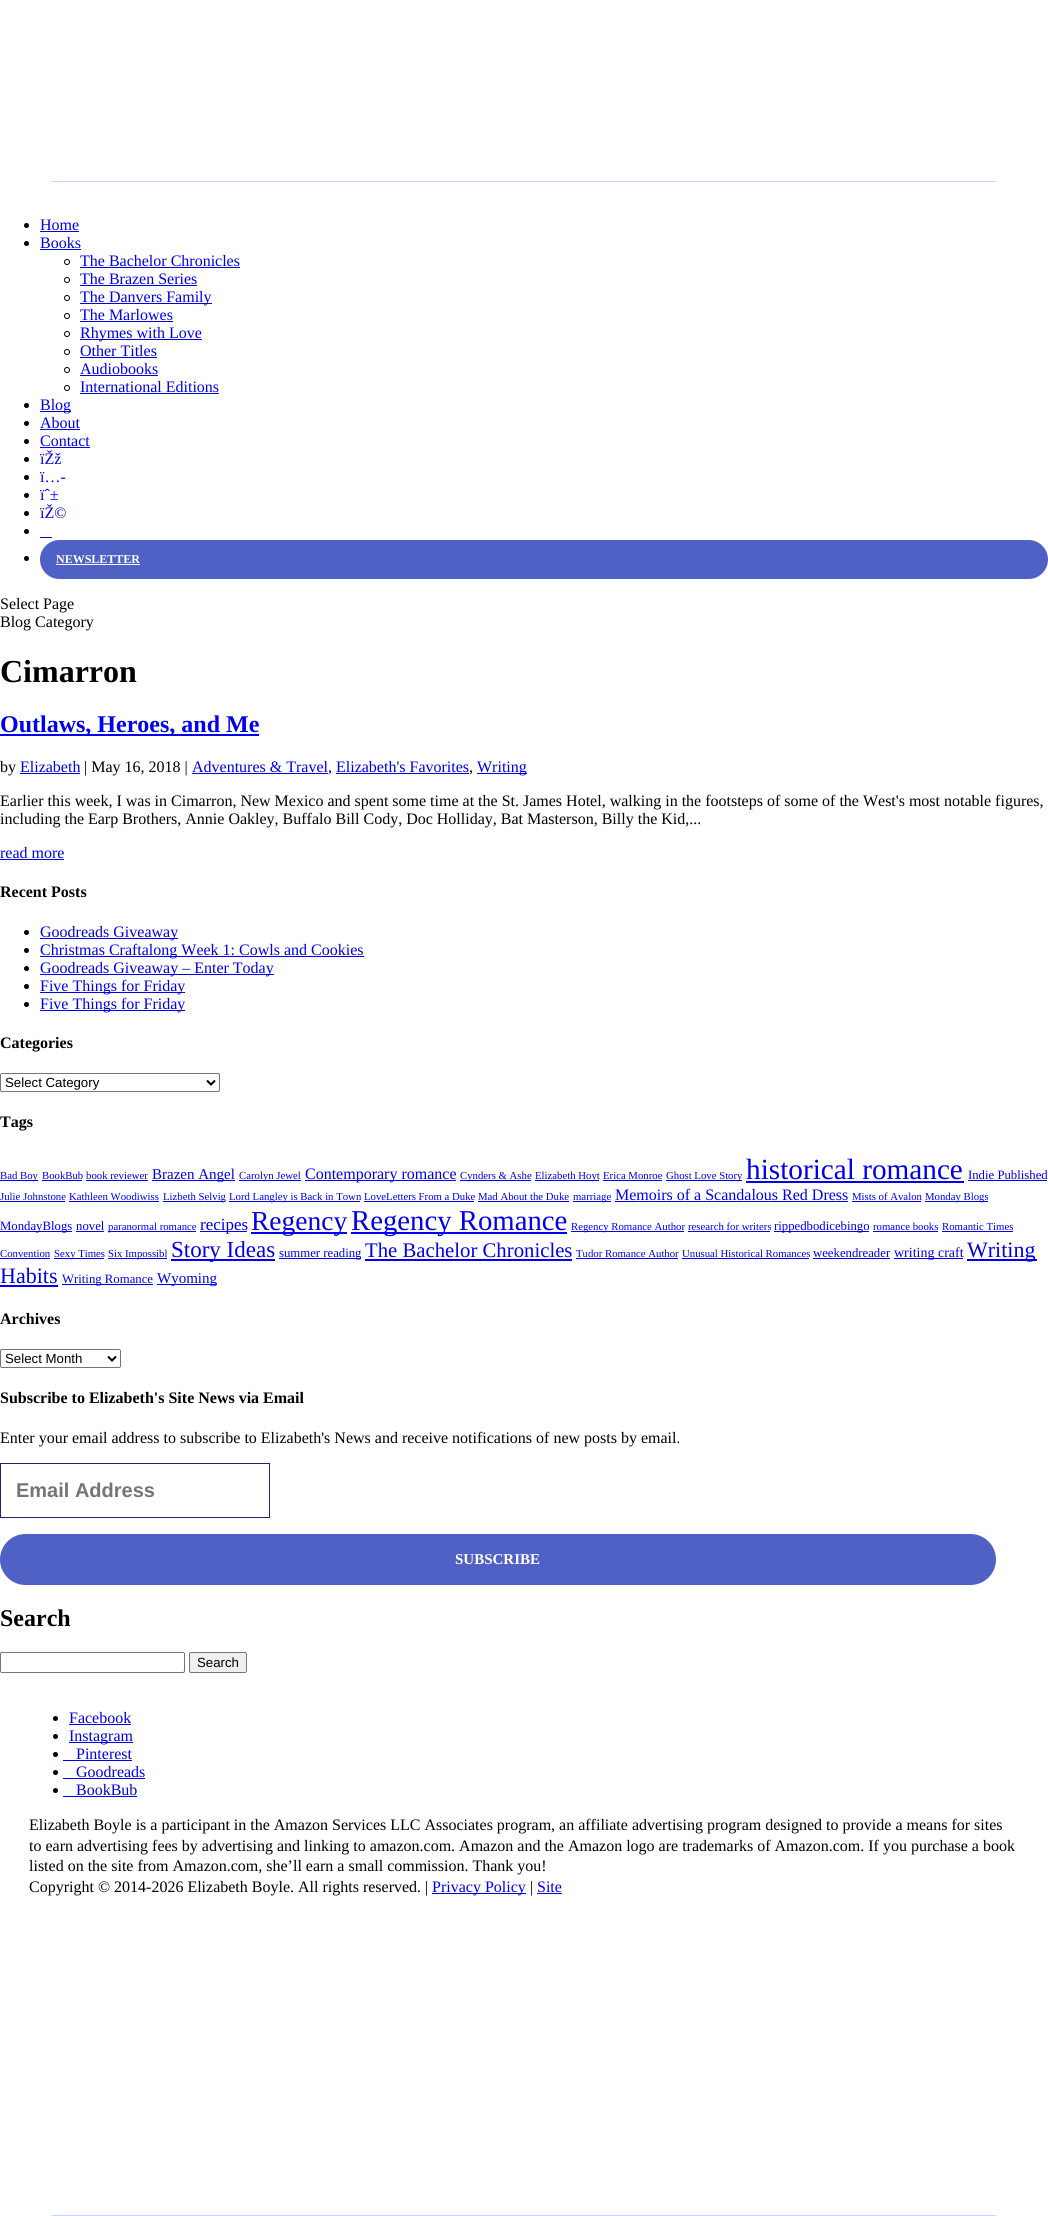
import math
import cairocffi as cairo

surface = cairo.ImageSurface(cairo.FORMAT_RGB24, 1048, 2216)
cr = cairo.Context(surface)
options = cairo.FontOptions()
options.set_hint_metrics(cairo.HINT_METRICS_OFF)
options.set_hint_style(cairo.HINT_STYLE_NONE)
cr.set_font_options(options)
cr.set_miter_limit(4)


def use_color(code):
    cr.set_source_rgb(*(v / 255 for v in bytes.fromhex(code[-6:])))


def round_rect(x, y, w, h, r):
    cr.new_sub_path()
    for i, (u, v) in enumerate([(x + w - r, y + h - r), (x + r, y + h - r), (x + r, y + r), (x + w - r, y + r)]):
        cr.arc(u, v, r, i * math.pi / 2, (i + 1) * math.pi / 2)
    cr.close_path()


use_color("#ffffff")
cr.paint()
use_color("#c9d5fd")
cr.rectangle(52, 181, 944, 1)
cr.fill()
use_color("#000000")
cr.arc(26.5, 225.5, 2.5, 0, 2 * math.pi)
cr.fill()
cr.select_font_face("Liberation Serif")
cr.set_font_size(16)
use_color("#0000ee")
cr.move_to(40, 230)
cr.show_text("Home")
cr.rectangle(40, 231, 39, 1)
cr.fill()
use_color("#000000")
cr.arc(26.5, 243.5, 2.5, 0, 2 * math.pi)
cr.fill()
use_color("#0000ee")
cr.move_to(40, 248)
cr.show_text("Books")
cr.rectangle(40, 249, 41, 1)
cr.fill()
cr.arc(67, 262, 2.5, 0, 2 * math.pi)
use_color("#000000")
cr.set_line_width(1)
cr.stroke()
use_color("#0000ee")
cr.move_to(80, 266)
cr.show_text("The Bachelor Chronicles")
cr.rectangle(80, 267, 160, 1)
cr.fill()
cr.arc(67, 280, 2.5, 0, 2 * math.pi)
use_color("#000000")
cr.stroke()
use_color("#0000ee")
cr.move_to(80, 284)
cr.show_text("The Brazen Series")
cr.rectangle(80, 285, 117, 1)
cr.fill()
cr.arc(67, 298, 2.5, 0, 2 * math.pi)
use_color("#000000")
cr.stroke()
use_color("#0000ee")
cr.rectangle(80, 303, 132, 1)
cr.fill()
cr.move_to(80, 302)
cr.show_text("The Danvers Family")
cr.new_path()
cr.arc(67, 316, 2.5, 0, 2 * math.pi)
use_color("#000000")
cr.stroke()
use_color("#0000ee")
cr.move_to(80, 320)
cr.show_text("The Marlowes")
cr.rectangle(80, 321, 93, 1)
cr.fill()
cr.arc(67, 334, 2.5, 0, 2 * math.pi)
use_color("#000000")
cr.stroke()
use_color("#0000ee")
cr.rectangle(80, 339, 122, 1)
cr.fill()
cr.move_to(80, 338)
cr.show_text("Rhymes with Love")
cr.new_path()
cr.arc(67, 352, 2.5, 0, 2 * math.pi)
use_color("#000000")
cr.stroke()
use_color("#0000ee")
cr.move_to(80, 356)
cr.show_text("Other Titles")
cr.rectangle(80, 357, 77, 1)
cr.fill()
cr.arc(67, 370, 2.5, 0, 2 * math.pi)
use_color("#000000")
cr.stroke()
use_color("#0000ee")
cr.move_to(80, 374)
cr.show_text("Audiobooks")
cr.rectangle(80, 375, 78, 1)
cr.fill()
cr.arc(67, 388, 2.5, 0, 2 * math.pi)
use_color("#000000")
cr.stroke()
use_color("#0000ee")
cr.move_to(80, 392)
cr.show_text("International Editions")
cr.rectangle(80, 393, 139, 1)
cr.fill()
use_color("#000000")
cr.arc(26.5, 405.5, 2.5, 0, 2 * math.pi)
cr.fill()
use_color("#0000ee")
cr.rectangle(40, 411, 31, 1)
cr.fill()
cr.move_to(40, 410)
cr.show_text("Blog")
use_color("#000000")
cr.new_path()
cr.arc(26.5, 423.5, 2.5, 0, 2 * math.pi)
cr.fill()
use_color("#0000ee")
cr.move_to(40, 428)
cr.show_text("About")
cr.rectangle(40, 429, 40, 1)
cr.fill()
use_color("#000000")
cr.arc(26.5, 441.5, 2.5, 0, 2 * math.pi)
cr.fill()
use_color("#0000ee")
cr.move_to(40, 446)
cr.show_text("Contact")
cr.rectangle(40, 447, 50, 1)
cr.fill()
use_color("#000000")
cr.arc(26.5, 459.5, 2.5, 0, 2 * math.pi)
cr.fill()
use_color("#0000ee")
cr.move_to(40, 464)
cr.show_text("ïŽž")
use_color("#000000")
cr.new_path()
cr.arc(26.5, 477.5, 2.5, 0, 2 * math.pi)
cr.fill()
use_color("#0000ee")
cr.move_to(40, 482)
cr.show_text("ï…-")
use_color("#000000")
cr.new_path()
cr.arc(26.5, 495.5, 2.5, 0, 2 * math.pi)
cr.fill()
use_color("#0000ee")
cr.move_to(40, 500)
cr.show_text("ïˆ±")
use_color("#000000")
cr.new_path()
cr.arc(26.5, 513.5, 2.5, 0, 2 * math.pi)
cr.fill()
use_color("#0000ee")
cr.move_to(40, 518)
cr.show_text("ïŽ©")
use_color("#000000")
cr.new_path()
cr.arc(26.5, 531.5, 2.5, 0, 2 * math.pi)
cr.fill()
use_color("#0000ee")
cr.rectangle(40, 537, 12, 1)
cr.fill()
use_color("#000000")
cr.arc(26.5, 558.5, 2.5, 0, 2 * math.pi)
cr.fill()
use_color("#5061c5")
round_rect(40, 540, 1008, 39, 19.5)
cr.fill()
cr.select_font_face("Liberation Serif", cairo.FONT_SLANT_NORMAL, cairo.FONT_WEIGHT_BOLD)
cr.set_font_size(12)
use_color("#ffffff")
cr.move_to(56, 563)
cr.show_text("NEWSLETTER")
cr.rectangle(56, 564, 84, 1)
cr.fill()
cr.select_font_face("Liberation Serif")
cr.set_font_size(16)
use_color("#000000")
cr.move_to(0, 609)
cr.show_text("Select Page")
use_color("#c9d5fd")
cr.rectangle(52, 2215, 944, 1)
cr.fill()
use_color("#000000")
cr.move_to(0, 627)
cr.show_text("Blog Category")
cr.select_font_face("Liberation Serif", cairo.FONT_SLANT_NORMAL, cairo.FONT_WEIGHT_BOLD)
cr.set_font_size(32)
cr.move_to(0, 682)
cr.show_text("Cimarron")
use_color("#0000ee")
cr.rectangle(0, 734, 259, 2)
cr.fill()
cr.set_font_size(24)
cr.move_to(0, 732)
cr.show_text("Outlaws, Heroes, and Me")
cr.select_font_face("Liberation Serif")
cr.set_font_size(16)
use_color("#000000")
cr.move_to(0, 772)
cr.show_text("by")
use_color("#0000ee")
cr.move_to(20, 772)
cr.show_text("Elizabeth")
cr.rectangle(20, 773, 60, 1)
cr.fill()
use_color("#000000")
cr.move_to(84, 772)
cr.show_text("| May 16, 2018 |")
use_color("#0000ee")
cr.move_to(192, 772)
cr.show_text("Adventures & Travel")
cr.rectangle(192, 773, 136, 1)
cr.fill()
use_color("#000000")
cr.move_to(328, 772)
cr.show_text(",")
use_color("#0000ee")
cr.move_to(336, 772)
cr.show_text("Elizabeth's Favorites")
cr.rectangle(336, 773, 133, 1)
cr.fill()
use_color("#000000")
cr.move_to(469, 772)
cr.show_text(",")
use_color("#0000ee")
cr.rectangle(477, 773, 50, 1)
cr.fill()
cr.move_to(477, 772)
cr.show_text("Writing")
use_color("#000000")
cr.move_to(0, 806)
cr.show_text("Earlier this week, I was in Cimarron, New Mexico and spent some time at the St. James Hotel, walking in the footsteps of some of the West's most notable figures,")
cr.move_to(0, 824)
cr.show_text("including the Earp Brothers, Annie Oakley, Buffalo Bill Cody, Doc Holliday, Bat Masterson, Billy the Kid,...")
use_color("#0000ee")
cr.move_to(0, 858)
cr.show_text("read more")
cr.rectangle(0, 859, 64, 1)
cr.fill()
cr.select_font_face("Liberation Serif", cairo.FONT_SLANT_NORMAL, cairo.FONT_WEIGHT_BOLD)
use_color("#000000")
cr.move_to(0, 897)
cr.show_text("Recent Posts")
cr.new_path()
cr.arc(26.5, 932.5, 2.5, 0, 2 * math.pi)
cr.fill()
use_color("#0000ee")
cr.rectangle(40, 938, 138, 1)
cr.fill()
cr.select_font_face("Liberation Serif")
cr.move_to(40, 937)
cr.show_text("Goodreads Giveaway")
use_color("#000000")
cr.new_path()
cr.arc(26.5, 950.5, 2.5, 0, 2 * math.pi)
cr.fill()
use_color("#0000ee")
cr.rectangle(40, 956, 324, 1)
cr.fill()
cr.move_to(40, 955)
cr.show_text("Christmas Craftalong Week 1: Cowls and Cookies")
use_color("#000000")
cr.new_path()
cr.arc(26.5, 968.5, 2.5, 0, 2 * math.pi)
cr.fill()
use_color("#0000ee")
cr.rectangle(40, 974, 234, 1)
cr.fill()
cr.move_to(40, 973)
cr.show_text("Goodreads Giveaway – Enter Today")
use_color("#000000")
cr.new_path()
cr.arc(26.5, 986.5, 2.5, 0, 2 * math.pi)
cr.fill()
use_color("#0000ee")
cr.rectangle(40, 992, 145, 1)
cr.fill()
cr.move_to(40, 991)
cr.show_text("Five Things for Friday")
use_color("#000000")
cr.new_path()
cr.arc(26.5, 1004.5, 2.5, 0, 2 * math.pi)
cr.fill()
use_color("#0000ee")
cr.rectangle(40, 1010, 145, 1)
cr.fill()
cr.move_to(40, 1009)
cr.show_text("Five Things for Friday")
cr.select_font_face("Liberation Serif", cairo.FONT_SLANT_NORMAL, cairo.FONT_WEIGHT_BOLD)
use_color("#000000")
cr.move_to(0, 1048)
cr.show_text("Categories")
round_rect(0.5, 1073.5, 219, 18, 1.5)
use_color("#767676")
cr.stroke()
cr.new_path()
cr.move_to(207, 1080.5)
cr.line_to(211, 1084.5)
cr.line_to(215, 1080.5)
use_color("#000000")
cr.set_line_width(2)
cr.stroke()
cr.select_font_face("Liberation Sans")
cr.set_font_size(13.25)
cr.move_to(5, 1087)
cr.show_text("Select Category")
cr.select_font_face("Liberation Serif", cairo.FONT_SLANT_NORMAL, cairo.FONT_WEIGHT_BOLD)
cr.set_font_size(16)
cr.move_to(0, 1127)
cr.show_text("Tags")
use_color("#0000ee")
cr.rectangle(0, 1180, 38, 1)
cr.fill()
cr.select_font_face("Liberation Serif")
cr.set_font_size(10.75)
cr.move_to(0, 1179)
cr.show_text("Bad Boy")
cr.move_to(42, 1179)
cr.show_text("BookBub")
cr.rectangle(42, 1180, 40, 1)
cr.fill()
cr.move_to(86, 1179)
cr.show_text("book reviewer")
cr.rectangle(86, 1180, 62, 1)
cr.fill()
cr.rectangle(152, 1180, 83, 1)
cr.fill()
cr.set_font_size(15)
cr.move_to(152, 1179)
cr.show_text("Brazen Angel")
cr.rectangle(239, 1180, 62, 1)
cr.fill()
cr.set_font_size(10.75)
cr.move_to(239, 1179)
cr.show_text("Carolyn Jewel")
cr.rectangle(305, 1180, 151, 1)
cr.fill()
cr.set_font_size(16)
cr.move_to(305, 1179)
cr.show_text("Contemporary romance")
cr.rectangle(460, 1180, 71, 1)
cr.fill()
cr.set_font_size(10.75)
cr.move_to(460, 1179)
cr.show_text("Cynders & Ashe")
cr.rectangle(535, 1180, 64, 1)
cr.fill()
cr.move_to(535, 1179)
cr.show_text("Elizabeth Hoyt")
cr.move_to(603, 1179)
cr.show_text("Erica Monroe")
cr.rectangle(603, 1180, 59, 1)
cr.fill()
cr.rectangle(666, 1180, 76, 1)
cr.fill()
cr.move_to(666, 1179)
cr.show_text("Ghost Love Story")
cr.set_font_size(29.25)
cr.move_to(746, 1179)
cr.show_text("historical romance")
cr.rectangle(746, 1181, 218, 2)
cr.fill()
cr.set_font_size(12.75)
cr.move_to(968, 1179)
cr.show_text("Indie Published")
cr.rectangle(968, 1180, 79, 1)
cr.fill()
cr.set_font_size(10.75)
cr.move_to(0, 1200)
cr.show_text("Julie Johnstone")
cr.rectangle(0, 1201, 65, 1)
cr.fill()
cr.move_to(69, 1200)
cr.show_text("Kathleen Woodiwiss")
cr.rectangle(69, 1201, 90, 1)
cr.fill()
cr.rectangle(163, 1201, 62, 1)
cr.fill()
cr.move_to(163, 1200)
cr.show_text("Lizbeth Selvig")
cr.rectangle(229, 1201, 131, 1)
cr.fill()
cr.move_to(229, 1200)
cr.show_text("Lord Langley is Back in Town")
cr.move_to(364, 1200)
cr.show_text("LoveLetters From a Duke")
cr.rectangle(364, 1201, 110, 1)
cr.fill()
cr.move_to(478, 1200)
cr.show_text("Mad About the Duke")
cr.rectangle(478, 1201, 91, 1)
cr.fill()
cr.rectangle(573, 1201, 38, 1)
cr.fill()
cr.move_to(573, 1200)
cr.show_text("marriage")
cr.set_font_size(16)
cr.move_to(615, 1200)
cr.show_text("Memoirs of a Scandalous Red Dress")
cr.rectangle(615, 1201, 233, 1)
cr.fill()
cr.set_font_size(10.75)
cr.move_to(852, 1200)
cr.show_text("Mists of Avalon")
cr.rectangle(852, 1201, 69, 1)
cr.fill()
cr.rectangle(925, 1201, 63, 1)
cr.fill()
cr.move_to(925, 1200)
cr.show_text("Monday Blogs")
cr.rectangle(0, 1231, 72, 1)
cr.fill()
cr.set_font_size(12.75)
cr.move_to(0, 1230)
cr.show_text("MondayBlogs")
cr.move_to(76, 1230)
cr.show_text("novel")
cr.rectangle(76, 1231, 28, 1)
cr.fill()
cr.rectangle(108, 1231, 88, 1)
cr.fill()
cr.set_font_size(10.75)
cr.move_to(108, 1230)
cr.show_text("paranormal romance")
cr.rectangle(200, 1231, 47, 1)
cr.fill()
cr.set_font_size(17)
cr.move_to(200, 1230)
cr.show_text("recipes")
cr.rectangle(251, 1232, 96, 2)
cr.fill()
cr.set_font_size(27.5)
cr.move_to(251, 1230)
cr.show_text("Regency")
cr.rectangle(351, 1232, 216, 2)
cr.fill()
cr.set_font_size(28.75)
cr.move_to(351, 1230)
cr.show_text("Regency Romance")
cr.rectangle(571, 1231, 113, 1)
cr.fill()
cr.set_font_size(10.75)
cr.move_to(571, 1230)
cr.show_text("Regency Romance Author")
cr.move_to(688, 1230)
cr.show_text("research for writers")
cr.rectangle(688, 1231, 82, 1)
cr.fill()
cr.rectangle(774, 1231, 95, 1)
cr.fill()
cr.set_font_size(12.75)
cr.move_to(774, 1230)
cr.show_text("rippedbodicebingo")
cr.set_font_size(10.75)
cr.move_to(873, 1230)
cr.show_text("romance books")
cr.rectangle(873, 1231, 65, 1)
cr.fill()
cr.move_to(942, 1230)
cr.show_text("Romantic Times")
cr.rectangle(942, 1231, 71, 1)
cr.fill()
cr.move_to(0, 1257)
cr.show_text("Convention")
cr.rectangle(0, 1258, 50, 1)
cr.fill()
cr.rectangle(54, 1258, 50, 1)
cr.fill()
cr.move_to(54, 1257)
cr.show_text("Sexy Times")
cr.rectangle(108, 1258, 59, 1)
cr.fill()
cr.move_to(108, 1257)
cr.show_text("Six Impossibl")
cr.rectangle(171, 1259, 104, 2)
cr.fill()
cr.set_font_size(23)
cr.move_to(171, 1257)
cr.show_text("Story Ideas")
cr.rectangle(279, 1258, 82, 1)
cr.fill()
cr.set_font_size(12.75)
cr.move_to(279, 1257)
cr.show_text("summer reading")
cr.set_font_size(20.75)
cr.move_to(365, 1257)
cr.show_text("The Bachelor Chronicles")
cr.rectangle(365, 1259, 207, 2)
cr.fill()
cr.set_font_size(10.75)
cr.move_to(576, 1257)
cr.show_text("Tudor Romance Author")
cr.rectangle(576, 1258, 102, 1)
cr.fill()
cr.move_to(682, 1257)
cr.show_text("Unusual Historical Romances")
cr.rectangle(682, 1258, 127, 1)
cr.fill()
cr.set_font_size(12.75)
cr.move_to(813, 1257)
cr.show_text("weekendreader")
cr.rectangle(813, 1258, 77, 1)
cr.fill()
cr.rectangle(894, 1258, 69, 1)
cr.fill()
cr.set_font_size(14)
cr.move_to(894, 1257)
cr.show_text("writing craft")
cr.rectangle(967, 1259, 70, 2)
cr.fill()
cr.set_font_size(22)
cr.move_to(967, 1257)
cr.show_text("Writing")
cr.move_to(0, 1283)
cr.show_text("Habits")
cr.rectangle(0, 1285, 58, 2)
cr.fill()
cr.rectangle(62, 1284, 91, 1)
cr.fill()
cr.set_font_size(12.75)
cr.move_to(62, 1283)
cr.show_text("Writing Romance")
cr.rectangle(157, 1284, 60, 1)
cr.fill()
cr.set_font_size(15)
cr.move_to(157, 1283)
cr.show_text("Wyoming")
cr.select_font_face("Liberation Serif", cairo.FONT_SLANT_NORMAL, cairo.FONT_WEIGHT_BOLD)
cr.set_font_size(16)
use_color("#000000")
cr.move_to(0, 1324)
cr.show_text("Archives")
round_rect(0.5, 1349.5, 120, 18, 1.5)
use_color("#767676")
cr.set_line_width(1)
cr.stroke()
cr.new_path()
cr.move_to(108, 1356.5)
cr.line_to(112, 1360.5)
cr.line_to(116, 1356.5)
use_color("#000000")
cr.set_line_width(2)
cr.stroke()
cr.select_font_face("Liberation Sans")
cr.set_font_size(13.25)
cr.move_to(5, 1363)
cr.show_text("Select Month")
cr.select_font_face("Liberation Serif", cairo.FONT_SLANT_NORMAL, cairo.FONT_WEIGHT_BOLD)
cr.set_font_size(16)
cr.move_to(0, 1403)
cr.show_text("Subscribe to Elizabeth's Site News via Email")
cr.select_font_face("Liberation Serif")
cr.move_to(0, 1443)
cr.show_text("Enter your email address to subscribe to Elizabeth's News and receive notifications of new posts by email.")
cr.rectangle(0.5, 1463.5, 269, 54)
use_color("#271b80")
cr.set_line_width(1)
cr.stroke()
cr.select_font_face("Liberation Sans", cairo.FONT_SLANT_NORMAL, cairo.FONT_WEIGHT_BOLD)
cr.set_font_size(20)
use_color("#757575")
cr.move_to(16, 1497)
cr.show_text("Email Address")
use_color("#5061c5")
round_rect(0, 1534, 996, 51, 25.5)
cr.fill()
cr.select_font_face("Liberation Serif", cairo.FONT_SLANT_NORMAL, cairo.FONT_WEIGHT_BOLD)
cr.set_font_size(15)
use_color("#ffffff")
cr.move_to(455, 1564)
cr.show_text("SUBSCRIBE")
cr.set_font_size(24)
use_color("#000000")
cr.move_to(0, 1626)
cr.show_text("Search")
round_rect(0.5, 1652.5, 184, 20, 1.5)
use_color("#767676")
cr.stroke()
use_color("#efefef")
round_rect(189.5, 1652.5, 57, 20, 1.5)
cr.fill_preserve()
use_color("#767676")
cr.stroke()
cr.select_font_face("Liberation Sans")
cr.set_font_size(13.25)
use_color("#000000")
cr.move_to(197, 1667)
cr.show_text("Search")
cr.new_path()
cr.arc(55.5, 1718.5, 2.5, 0, 2 * math.pi)
cr.fill()
cr.select_font_face("Liberation Serif")
cr.set_font_size(16)
use_color("#0000ee")
cr.move_to(69, 1723)
cr.show_text("Facebook")
cr.rectangle(69, 1724, 62, 1)
cr.fill()
use_color("#000000")
cr.arc(55.5, 1736.5, 2.5, 0, 2 * math.pi)
cr.fill()
use_color("#0000ee")
cr.rectangle(69, 1742, 64, 1)
cr.fill()
cr.move_to(69, 1741)
cr.show_text("Instagram")
use_color("#000000")
cr.new_path()
cr.arc(55.5, 1754.5, 2.5, 0, 2 * math.pi)
cr.fill()
use_color("#0000ee")
cr.move_to(76, 1759)
cr.show_text("Pinterest")
cr.rectangle(63, 1760, 69, 1)
cr.fill()
use_color("#000000")
cr.arc(55.5, 1772.5, 2.5, 0, 2 * math.pi)
cr.fill()
use_color("#0000ee")
cr.move_to(76, 1777)
cr.show_text("Goodreads")
cr.rectangle(63, 1778, 82, 1)
cr.fill()
use_color("#000000")
cr.arc(55.5, 1790.5, 2.5, 0, 2 * math.pi)
cr.fill()
use_color("#0000ee")
cr.move_to(76, 1795)
cr.show_text("BookBub")
cr.rectangle(63, 1796, 74, 1)
cr.fill()
use_color("#000000")
cr.move_to(29, 1830)
cr.show_text("Elizabeth Boyle is a participant in the Amazon Services LLC Associates program, an affiliate advertising program designed to provide a means for sites")
cr.move_to(29, 1851)
cr.show_text("to earn advertising fees by advertising and linking to amazon.com. Amazon and the Amazon logo are trademarks of Amazon.com. If you purchase a book")
cr.move_to(29, 1871)
cr.show_text("listed on the site from Amazon.com, she’ll earn a small commission. Thank you!")
cr.move_to(29, 1892)
cr.show_text("Copyright © 2014-2026 Elizabeth Boyle. All rights reserved. |")
use_color("#0000ee")
cr.rectangle(432, 1893, 94, 1)
cr.fill()
cr.move_to(432, 1892)
cr.show_text("Privacy Policy")
use_color("#000000")
cr.move_to(530, 1892)
cr.show_text("|")
use_color("#0000ee")
cr.move_to(537, 1892)
cr.show_text("Site")
cr.rectangle(537, 1893, 25, 1)
cr.fill()
surface.write_to_png("result.png")
